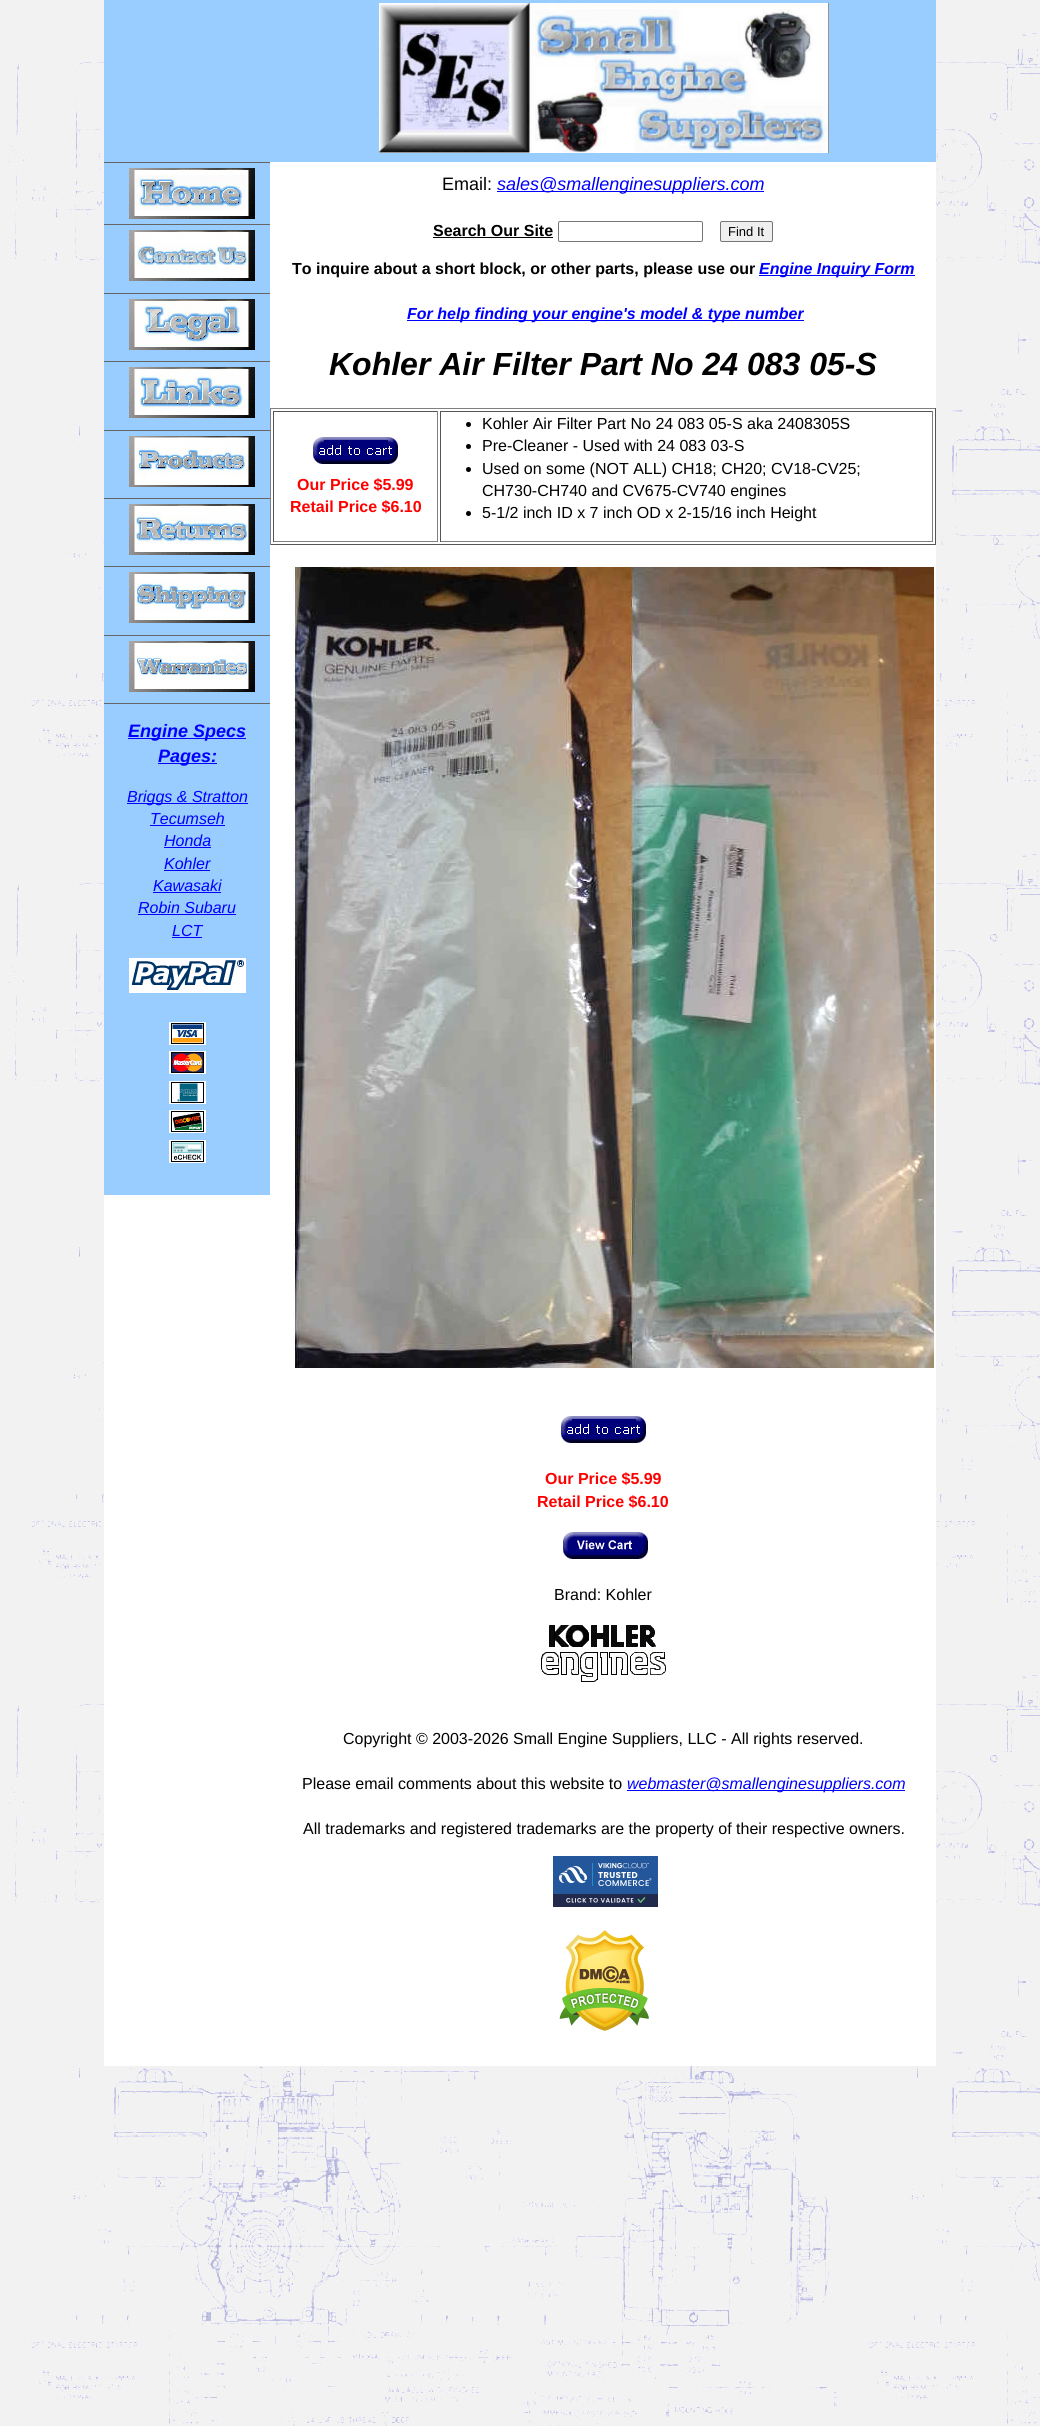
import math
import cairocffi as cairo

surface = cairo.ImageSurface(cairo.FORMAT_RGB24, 1040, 2426)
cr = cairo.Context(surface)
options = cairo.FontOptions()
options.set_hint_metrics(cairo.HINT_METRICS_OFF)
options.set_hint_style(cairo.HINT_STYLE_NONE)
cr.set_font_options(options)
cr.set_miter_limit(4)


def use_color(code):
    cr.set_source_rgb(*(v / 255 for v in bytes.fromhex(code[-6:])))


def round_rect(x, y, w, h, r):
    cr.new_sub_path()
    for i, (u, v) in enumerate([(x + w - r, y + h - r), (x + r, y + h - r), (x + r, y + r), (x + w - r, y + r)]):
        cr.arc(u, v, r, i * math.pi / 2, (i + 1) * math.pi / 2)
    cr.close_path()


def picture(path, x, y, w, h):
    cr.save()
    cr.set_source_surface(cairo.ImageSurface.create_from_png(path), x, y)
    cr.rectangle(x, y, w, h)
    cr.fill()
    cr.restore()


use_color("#ffffff")
cr.paint()
picture("img1.png", 0, 0, 1040, 2426)
use_color("#ffffff")
cr.rectangle(104, 162, 832, 1904)
cr.fill()
use_color("#99ccff")
cr.rectangle(104, 0, 832, 162)
cr.fill()
picture("img2.png", 379, 3, 450, 150)
cr.rectangle(104, 163, 166, 1032)
cr.fill()
use_color("#666666")
cr.rectangle(104, 162, 166, 1)
cr.fill()
cr.rectangle(104, 224, 166, 1)
cr.fill()
picture("img3.png", 129, 168, 126, 51)
cr.rectangle(104, 293, 166, 1)
cr.fill()
picture("img4.png", 129, 230, 126, 51)
cr.rectangle(104, 361, 166, 1)
cr.fill()
picture("img5.png", 129, 299, 126, 51)
cr.rectangle(104, 430, 166, 1)
cr.fill()
picture("img6.png", 129, 367, 126, 51)
cr.rectangle(104, 498, 166, 1)
cr.fill()
picture("img7.png", 129, 436, 126, 51)
cr.rectangle(104, 566, 166, 1)
cr.fill()
picture("img8.png", 129, 504, 126, 51)
cr.rectangle(104, 635, 166, 1)
cr.fill()
picture("img9.png", 129, 572, 126, 51)
cr.rectangle(104, 703, 166, 1)
cr.fill()
picture("img10.png", 129, 641, 126, 51)
use_color("#0000ff")
cr.rectangle(128, 738, 118, 1)
cr.fill()
cr.select_font_face("Liberation Sans", cairo.FONT_SLANT_ITALIC, cairo.FONT_WEIGHT_BOLD)
cr.set_font_size(18)
cr.move_to(128, 737)
cr.show_text("Engine Specs")
cr.rectangle(158, 763, 59, 1)
cr.fill()
cr.move_to(158, 762)
cr.show_text("Pages:")
cr.rectangle(127, 803, 121, 1)
cr.fill()
cr.select_font_face("Liberation Sans", cairo.FONT_SLANT_ITALIC)
cr.set_font_size(16)
cr.move_to(127, 802)
cr.show_text("Briggs & Stratton")
cr.move_to(150, 824)
cr.show_text("Tecumseh")
cr.rectangle(150, 825, 75, 1)
cr.fill()
cr.move_to(164, 846)
cr.show_text("Honda")
cr.rectangle(164, 847, 47, 1)
cr.fill()
cr.move_to(164, 869)
cr.show_text("Kohler")
cr.rectangle(164, 870, 46, 1)
cr.fill()
cr.move_to(153, 891)
cr.show_text("Kawasaki")
cr.rectangle(153, 892, 68, 1)
cr.fill()
cr.move_to(138, 913)
cr.show_text("Robin Subaru")
cr.rectangle(138, 914, 98, 1)
cr.fill()
cr.move_to(172, 936)
cr.show_text("LCT")
cr.rectangle(172, 937, 30, 1)
cr.fill()
picture("img11.png", 129, 958, 117, 35)
picture("img12.png", 169, 1022, 37, 23)
picture("img13.png", 169, 1051, 37, 23)
picture("img14.png", 169, 1081, 37, 23)
picture("img15.png", 169, 1110, 37, 23)
picture("img16.png", 169, 1140, 37, 23)
cr.select_font_face("Liberation Sans")
cr.set_font_size(18)
use_color("#000000")
cr.move_to(442, 190)
cr.show_text("Email:")
use_color("#0000ff")
cr.rectangle(497, 191, 267, 1)
cr.fill()
cr.select_font_face("Liberation Sans", cairo.FONT_SLANT_ITALIC)
cr.move_to(497, 190)
cr.show_text("sales@smallenginesuppliers.com")
cr.select_font_face("Liberation Sans", cairo.FONT_SLANT_NORMAL, cairo.FONT_WEIGHT_BOLD)
cr.set_font_size(16)
use_color("#000000")
cr.move_to(433, 236)
cr.show_text("Search Our Site")
cr.rectangle(433, 237, 120, 1)
cr.fill()
round_rect(558.5, 221.5, 144, 20, 1.5)
use_color("#767676")
cr.set_line_width(1)
cr.stroke()
use_color("#efefef")
round_rect(720.5, 221.5, 52, 20, 1.5)
cr.fill_preserve()
use_color("#767676")
cr.stroke()
cr.select_font_face("Liberation Sans")
cr.set_font_size(13)
use_color("#000000")
cr.move_to(728, 236)
cr.show_text("Find It")
cr.select_font_face("Liberation Sans", cairo.FONT_SLANT_NORMAL, cairo.FONT_WEIGHT_BOLD)
cr.set_font_size(16)
cr.move_to(292, 274)
cr.show_text("To inquire about a short block, or other parts, please use our")
use_color("#0000ff")
cr.rectangle(759, 275, 156, 1)
cr.fill()
cr.select_font_face("Liberation Sans", cairo.FONT_SLANT_ITALIC, cairo.FONT_WEIGHT_BOLD)
cr.move_to(759, 274)
cr.show_text("Engine Inquiry Form")
cr.rectangle(407, 320, 397, 1)
cr.fill()
cr.move_to(407, 319)
cr.show_text("For help finding your engine's model & type number")
cr.set_font_size(32)
use_color("#000000")
cr.move_to(329, 375)
cr.show_text("Kohler Air Filter Part No 24 083 05-S")
use_color("#808080")
cr.rectangle(270, 408, 666, 1)
cr.fill()
use_color("#555555")
cr.rectangle(935, 408, 1, 137)
cr.fill()
cr.rectangle(270, 544, 666, 1)
cr.fill()
use_color("#808080")
cr.rectangle(270, 408, 1, 137)
cr.fill()
use_color("#555555")
cr.rectangle(273, 411, 165, 1)
cr.fill()
use_color("#808080")
cr.rectangle(437, 411, 1, 131)
cr.fill()
cr.rectangle(273, 541, 165, 1)
cr.fill()
use_color("#555555")
cr.rectangle(273, 411, 1, 131)
cr.fill()
picture("img17.png", 313, 437, 85, 27)
cr.select_font_face("Liberation Sans", cairo.FONT_SLANT_NORMAL, cairo.FONT_WEIGHT_BOLD)
cr.set_font_size(16)
use_color("#ff0000")
cr.move_to(297, 490)
cr.show_text("Our Price $5.99")
cr.move_to(290, 512)
cr.show_text("Retail Price $6.10")
use_color("#555555")
cr.rectangle(440, 411, 493, 1)
cr.fill()
use_color("#808080")
cr.rectangle(932, 411, 1, 131)
cr.fill()
cr.rectangle(440, 541, 493, 1)
cr.fill()
use_color("#555555")
cr.rectangle(440, 411, 1, 131)
cr.fill()
use_color("#000000")
cr.arc(468.5, 424.5, 2.5, 0, 2 * math.pi)
cr.fill()
cr.select_font_face("Liberation Sans")
cr.move_to(482, 429)
cr.show_text("Kohler Air Filter Part No 24 083 05-S aka 2408305S")
cr.new_path()
cr.arc(468.5, 446.5, 2.5, 0, 2 * math.pi)
cr.fill()
cr.move_to(482, 451)
cr.show_text("Pre-Cleaner - Used with 24 083 03-S")
cr.new_path()
cr.arc(468.5, 469.5, 2.5, 0, 2 * math.pi)
cr.fill()
cr.move_to(482, 474)
cr.show_text("Used on some (NOT ALL) CH18; CH20; CV18-CV25;")
cr.move_to(482, 496)
cr.show_text("CH730-CH740 and CV675-CV740 engines")
cr.new_path()
cr.arc(468.5, 513.5, 2.5, 0, 2 * math.pi)
cr.fill()
cr.move_to(482, 518)
cr.show_text("5-1/2 inch ID x 7 inch OD x 2-15/16 inch Height")
picture("img18.png", 293, 567, 641, 801)
picture("img17.png", 561, 1416, 85, 27)
cr.select_font_face("Liberation Sans", cairo.FONT_SLANT_NORMAL, cairo.FONT_WEIGHT_BOLD)
use_color("#ff0000")
cr.move_to(545, 1484)
cr.show_text("Our Price $5.99")
cr.move_to(537, 1507)
cr.show_text("Retail Price $6.10")
picture("img19.png", 563, 1532, 85, 27)
cr.select_font_face("Liberation Sans")
use_color("#000000")
cr.move_to(554, 1600)
cr.show_text("Brand: Kohler")
picture("img20.png", 541, 1625, 125, 57)
cr.move_to(343, 1744)
cr.show_text("Copyright © 2003-2026 Small Engine Suppliers, LLC - All rights reserved.")
cr.move_to(302, 1789)
cr.show_text("Please email comments about this website to")
use_color("#0000ff")
cr.rectangle(627, 1790, 278, 1)
cr.fill()
cr.select_font_face("Liberation Sans", cairo.FONT_SLANT_ITALIC)
cr.move_to(627, 1789)
cr.show_text("webmaster@smallenginesuppliers.com")
cr.select_font_face("Liberation Sans")
use_color("#000000")
cr.move_to(303, 1834)
cr.show_text("All trademarks and registered trademarks are the property of their respective owners.")
picture("img21.png", 553, 1856, 105, 51)
picture("img22.png", 559, 1930, 90, 101)
surface.write_to_png("result.png")
